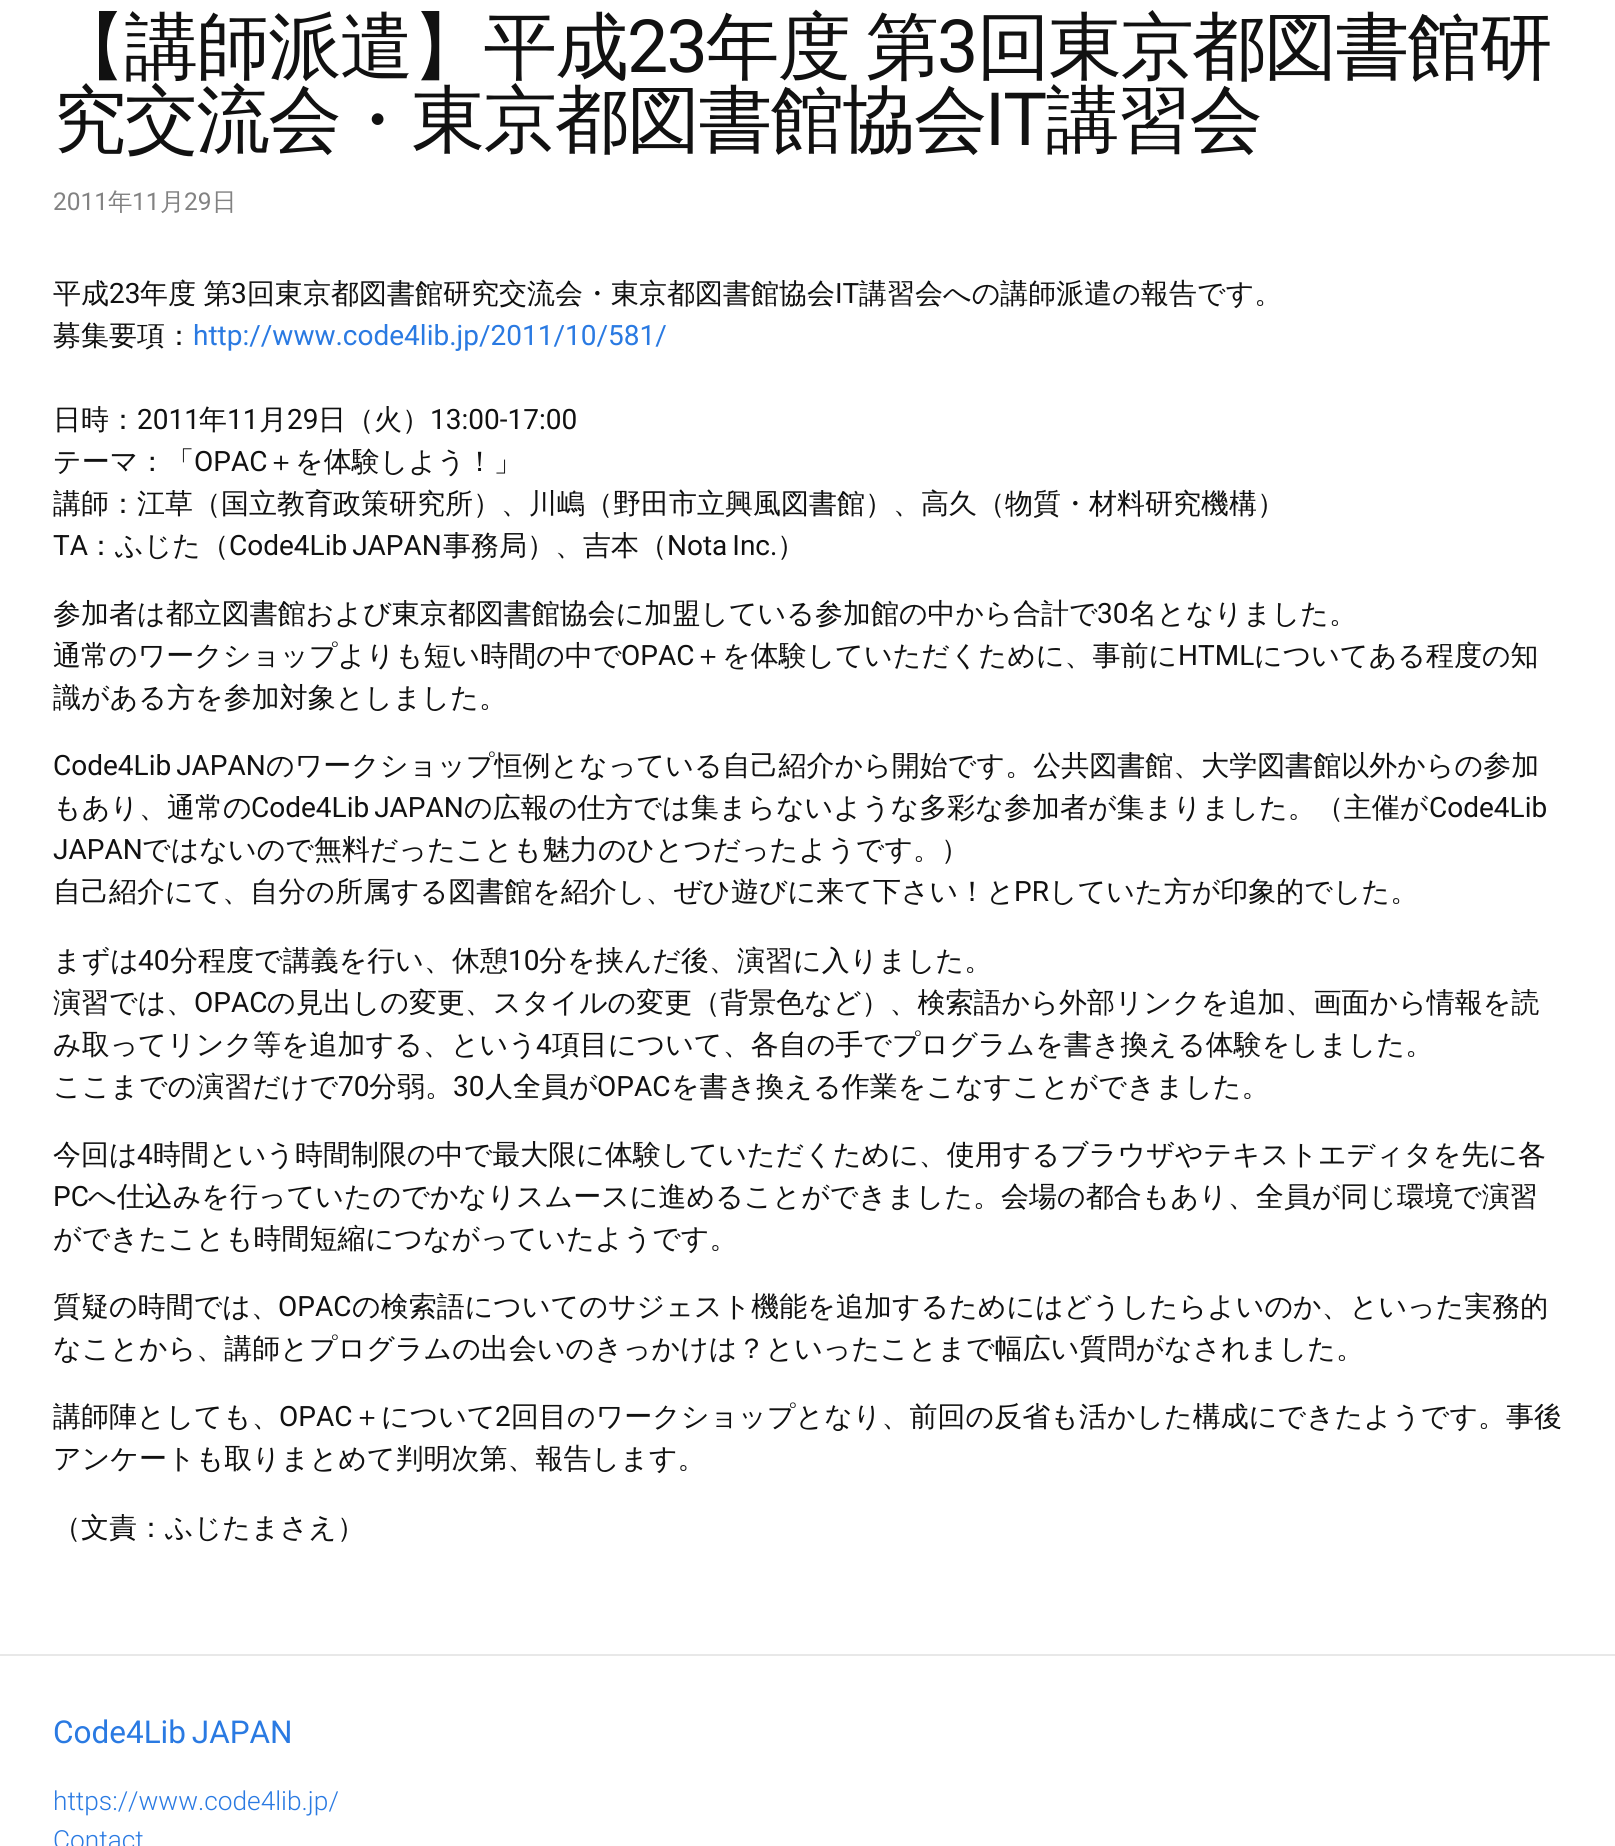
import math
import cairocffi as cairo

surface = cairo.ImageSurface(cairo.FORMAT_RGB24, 1615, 1846)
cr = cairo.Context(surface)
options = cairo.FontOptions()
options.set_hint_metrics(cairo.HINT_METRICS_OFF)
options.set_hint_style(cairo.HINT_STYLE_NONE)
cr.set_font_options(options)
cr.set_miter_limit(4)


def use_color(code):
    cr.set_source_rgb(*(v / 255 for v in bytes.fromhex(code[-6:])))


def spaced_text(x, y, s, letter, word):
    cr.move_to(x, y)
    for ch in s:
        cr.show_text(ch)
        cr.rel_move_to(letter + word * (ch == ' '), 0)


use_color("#ffffff")
cr.paint()
cr.select_font_face("WenQuanYi Zen Hei Medium")
cr.set_font_size(73.5)
use_color("#111111")
spaced_text(53, 72, "【講師派遣】平成", -1.75, 0)
cr.select_font_face("Roboto")
spaced_text(627, 72, "23", -1.75, 0)
cr.select_font_face("WenQuanYi Zen Hei Medium")
spaced_text(706, 72, "年度 第", -1.75, -4)
cr.select_font_face("Roboto")
spaced_text(937, 72, "3", -1.75, 0)
cr.select_font_face("WenQuanYi Zen Hei Medium")
spaced_text(977, 72, "回東京都図書館研", -1.75, 0)
spaced_text(53, 145, "究交流会・東京都図書館協会", -1.75, 0)
cr.select_font_face("Roboto")
spaced_text(985, 145, "IT", -1.75, 0)
cr.select_font_face("WenQuanYi Zen Hei Medium")
spaced_text(1046, 145, "講習会", -1.75, 0)
cr.select_font_face("Roboto")
cr.set_font_size(24.5)
use_color("#828282")
cr.move_to(53, 210)
cr.show_text("2011")
cr.select_font_face("WenQuanYi Zen Hei Medium")
cr.move_to(108, 210)
cr.show_text("年")
cr.select_font_face("Roboto")
cr.move_to(132, 210)
cr.show_text("11")
cr.select_font_face("WenQuanYi Zen Hei Medium")
cr.move_to(160, 210)
cr.show_text("月")
cr.select_font_face("Roboto")
cr.move_to(184, 210)
cr.show_text("29")
cr.select_font_face("WenQuanYi Zen Hei Medium")
cr.move_to(212, 210)
cr.show_text("日")
cr.set_font_size(28)
use_color("#111111")
cr.move_to(53, 303)
cr.show_text("平成")
cr.select_font_face("Roboto")
cr.move_to(109, 303)
cr.show_text("23")
cr.select_font_face("WenQuanYi Zen Hei Medium")
spaced_text(140, 303, "年度 第", 0, -1)
cr.select_font_face("Roboto")
cr.move_to(231, 303)
cr.show_text("3")
cr.select_font_face("WenQuanYi Zen Hei Medium")
cr.move_to(247, 303)
cr.show_text("回東京都図書館研究交流会・東京都図書館協会")
cr.select_font_face("Roboto")
cr.move_to(835, 303)
cr.show_text("IT")
cr.select_font_face("WenQuanYi Zen Hei Medium")
cr.move_to(859, 303)
cr.show_text("講習会への講師派遣の報告です。")
cr.move_to(53, 345)
cr.show_text("募集要項：")
cr.select_font_face("Roboto")
use_color("#2a7ae2")
cr.move_to(193, 345)
cr.show_text("http://www.code4lib.jp/2011/10/581/")
cr.select_font_face("WenQuanYi Zen Hei Medium")
use_color("#111111")
cr.move_to(53, 429)
cr.show_text("日時：")
cr.select_font_face("Roboto")
cr.move_to(137, 429)
cr.show_text("2011")
cr.select_font_face("WenQuanYi Zen Hei Medium")
cr.move_to(199, 429)
cr.show_text("年")
cr.select_font_face("Roboto")
cr.move_to(227, 429)
cr.show_text("11")
cr.select_font_face("WenQuanYi Zen Hei Medium")
cr.move_to(259, 429)
cr.show_text("月")
cr.select_font_face("Roboto")
cr.move_to(287, 429)
cr.show_text("29")
cr.select_font_face("WenQuanYi Zen Hei Medium")
cr.move_to(318, 429)
cr.show_text("日（火）")
cr.select_font_face("Roboto")
cr.move_to(430, 429)
cr.show_text("13:00-17:00")
cr.select_font_face("WenQuanYi Zen Hei Medium")
cr.move_to(53, 471)
cr.show_text("テーマ：「")
cr.select_font_face("Roboto")
cr.move_to(194, 471)
cr.show_text("OPAC")
cr.select_font_face("WenQuanYi Zen Hei Medium")
cr.move_to(267, 471)
cr.show_text("＋を体験しよう！」")
cr.move_to(53, 513)
cr.show_text("講師：江草（国立教育政策研究所）、川嶋（野田市立興風図書館）、高久（物質・材料研究機構）")
cr.select_font_face("Roboto")
cr.move_to(53, 555)
cr.show_text("TA")
cr.select_font_face("WenQuanYi Zen Hei Medium")
cr.move_to(87, 555)
cr.show_text("：ふじた（")
cr.select_font_face("Roboto")
spaced_text(229, 555, "Code4Lib JAPAN", 0, -2)
cr.select_font_face("WenQuanYi Zen Hei Medium")
cr.move_to(443, 555)
cr.show_text("事務局）、吉本（")
cr.select_font_face("Roboto")
spaced_text(667, 555, "Nota Inc.", 0, -2)
cr.select_font_face("WenQuanYi Zen Hei Medium")
cr.move_to(777, 555)
cr.show_text("）")
cr.move_to(53, 623)
cr.show_text("参加者は都立図書館および東京都図書館協会に加盟している参加館の中から合計で")
cr.select_font_face("Roboto")
cr.move_to(1097, 623)
cr.show_text("30")
cr.select_font_face("WenQuanYi Zen Hei Medium")
cr.move_to(1129, 623)
cr.show_text("名となりました。")
cr.move_to(53, 665)
cr.show_text("通常のワークショップよりも短い時間の中で")
cr.select_font_face("Roboto")
cr.move_to(621, 665)
cr.show_text("OPAC")
cr.select_font_face("WenQuanYi Zen Hei Medium")
cr.move_to(694, 665)
cr.show_text("＋を体験していただくために、事前に")
cr.select_font_face("Roboto")
cr.move_to(1178, 665)
cr.show_text("HTML")
cr.select_font_face("WenQuanYi Zen Hei Medium")
cr.move_to(1254, 665)
cr.show_text("についてある程度の知")
cr.move_to(53, 707)
cr.show_text("識がある方を参加対象としました。")
cr.select_font_face("Roboto")
spaced_text(53, 775, "Code4Lib JAPAN", 0, -2)
cr.select_font_face("WenQuanYi Zen Hei Medium")
cr.move_to(266, 775)
cr.show_text("のワークショップ恒例となっている自己紹介から開始です。公共図書館、大学図書館以外からの参加")
cr.move_to(53, 817)
cr.show_text("もあり、通常の")
cr.select_font_face("Roboto")
spaced_text(251, 817, "Code4Lib JAPAN", 0, -2)
cr.select_font_face("WenQuanYi Zen Hei Medium")
cr.move_to(464, 817)
cr.show_text("の広報の仕方では集まらないような多彩な参加者が集まりました。（主催が")
cr.select_font_face("Roboto")
cr.move_to(1429, 817)
cr.show_text("Code4Lib")
cr.move_to(53, 859)
cr.show_text("JAPAN")
cr.select_font_face("WenQuanYi Zen Hei Medium")
cr.move_to(142, 859)
cr.show_text("ではないので無料だったことも魅力のひとつだったようです。）")
cr.move_to(53, 901)
cr.show_text("自己紹介にて、自分の所属する図書館を紹介し、ぜひ遊びに来て下さい！と")
cr.select_font_face("Roboto")
cr.move_to(1014, 901)
cr.show_text("PR")
cr.select_font_face("WenQuanYi Zen Hei Medium")
cr.move_to(1049, 901)
cr.show_text("していた方が印象的でした。")
cr.move_to(53, 970)
cr.show_text("まずは")
cr.select_font_face("Roboto")
cr.move_to(138, 970)
cr.show_text("40")
cr.select_font_face("WenQuanYi Zen Hei Medium")
cr.move_to(170, 970)
cr.show_text("分程度で講義を行い、休憩")
cr.select_font_face("Roboto")
cr.move_to(508, 970)
cr.show_text("10")
cr.select_font_face("WenQuanYi Zen Hei Medium")
cr.move_to(539, 970)
cr.show_text("分を挟んだ後、演習に入りました。")
cr.move_to(53, 1012)
cr.show_text("演習では、")
cr.select_font_face("Roboto")
cr.move_to(194, 1012)
cr.show_text("OPAC")
cr.select_font_face("WenQuanYi Zen Hei Medium")
cr.move_to(267, 1012)
cr.show_text("の見出しの変更、スタイルの変更（背景色など）、検索語から外部リンクを追加、画面から情報を読")
cr.move_to(53, 1054)
cr.show_text("み取ってリンク等を追加する、という")
cr.select_font_face("Roboto")
cr.move_to(536, 1054)
cr.show_text("4")
cr.select_font_face("WenQuanYi Zen Hei Medium")
cr.move_to(552, 1054)
cr.show_text("項目について、各自の手でプログラムを書き換える体験をしました。")
cr.move_to(53, 1096)
cr.show_text("ここまでの演習だけで")
cr.select_font_face("Roboto")
cr.move_to(338, 1096)
cr.show_text("70")
cr.select_font_face("WenQuanYi Zen Hei Medium")
cr.move_to(369, 1096)
cr.show_text("分弱。")
cr.select_font_face("Roboto")
cr.move_to(453, 1096)
cr.show_text("30")
cr.select_font_face("WenQuanYi Zen Hei Medium")
cr.move_to(485, 1096)
cr.show_text("人全員が")
cr.select_font_face("Roboto")
cr.move_to(597, 1096)
cr.show_text("OPAC")
cr.select_font_face("WenQuanYi Zen Hei Medium")
cr.move_to(671, 1096)
cr.show_text("を書き換える作業をこなすことができました。")
cr.move_to(53, 1164)
cr.show_text("今回は")
cr.select_font_face("Roboto")
cr.move_to(137, 1164)
cr.show_text("4")
cr.select_font_face("WenQuanYi Zen Hei Medium")
cr.move_to(153, 1164)
cr.show_text("時間という時間制限の中で最大限に体験していただくために、使用するブラウザやテキストエディタを先に各")
cr.select_font_face("Roboto")
cr.move_to(53, 1206)
cr.show_text("PC")
cr.select_font_face("WenQuanYi Zen Hei Medium")
cr.move_to(88, 1206)
cr.show_text("へ仕込みを行っていたのでかなりスムースに進めることができました。会場の都合もあり、全員が同じ環境で演習")
cr.move_to(53, 1248)
cr.show_text("ができたことも時間短縮につながっていたようです。")
cr.move_to(53, 1316)
cr.show_text("質疑の時間では、")
cr.select_font_face("Roboto")
cr.move_to(278, 1316)
cr.show_text("OPAC")
cr.select_font_face("WenQuanYi Zen Hei Medium")
cr.move_to(352, 1316)
cr.show_text("の検索語についてのサジェスト機能を追加するためにはどうしたらよいのか、といった実務的")
cr.move_to(53, 1358)
cr.show_text("なことから、講師とプログラムの出会いのきっかけは？といったことまで幅広い質問がなされました。")
cr.move_to(53, 1426)
cr.show_text("講師陣としても、")
cr.select_font_face("Roboto")
cr.move_to(279, 1426)
cr.show_text("OPAC")
cr.select_font_face("WenQuanYi Zen Hei Medium")
cr.move_to(353, 1426)
cr.show_text("＋について")
cr.select_font_face("Roboto")
cr.move_to(495, 1426)
cr.show_text("2")
cr.select_font_face("WenQuanYi Zen Hei Medium")
cr.move_to(511, 1426)
cr.show_text("回目のワークショップとなり、前回の反省も活かした構成にできたようです。事後")
cr.move_to(53, 1468)
cr.show_text("アンケートも取りまとめて判明次第、報告します。")
cr.move_to(53, 1537)
cr.show_text("（文責：ふじたまさえ）")
use_color("#e8e8e8")
cr.rectangle(0, 1654, 1615, 2)
cr.fill()
cr.select_font_face("Roboto")
cr.set_font_size(31.5)
use_color("#2a7ae2")
spaced_text(53, 1743, "Code4Lib JAPAN", 0, -2)
cr.select_font_face("Roboto Light")
cr.set_font_size(26.25)
cr.move_to(53, 1810)
cr.show_text("https://www.code4lib.jp/")
cr.move_to(53, 1849)
cr.show_text("Contact")
surface.write_to_png("result.png")
